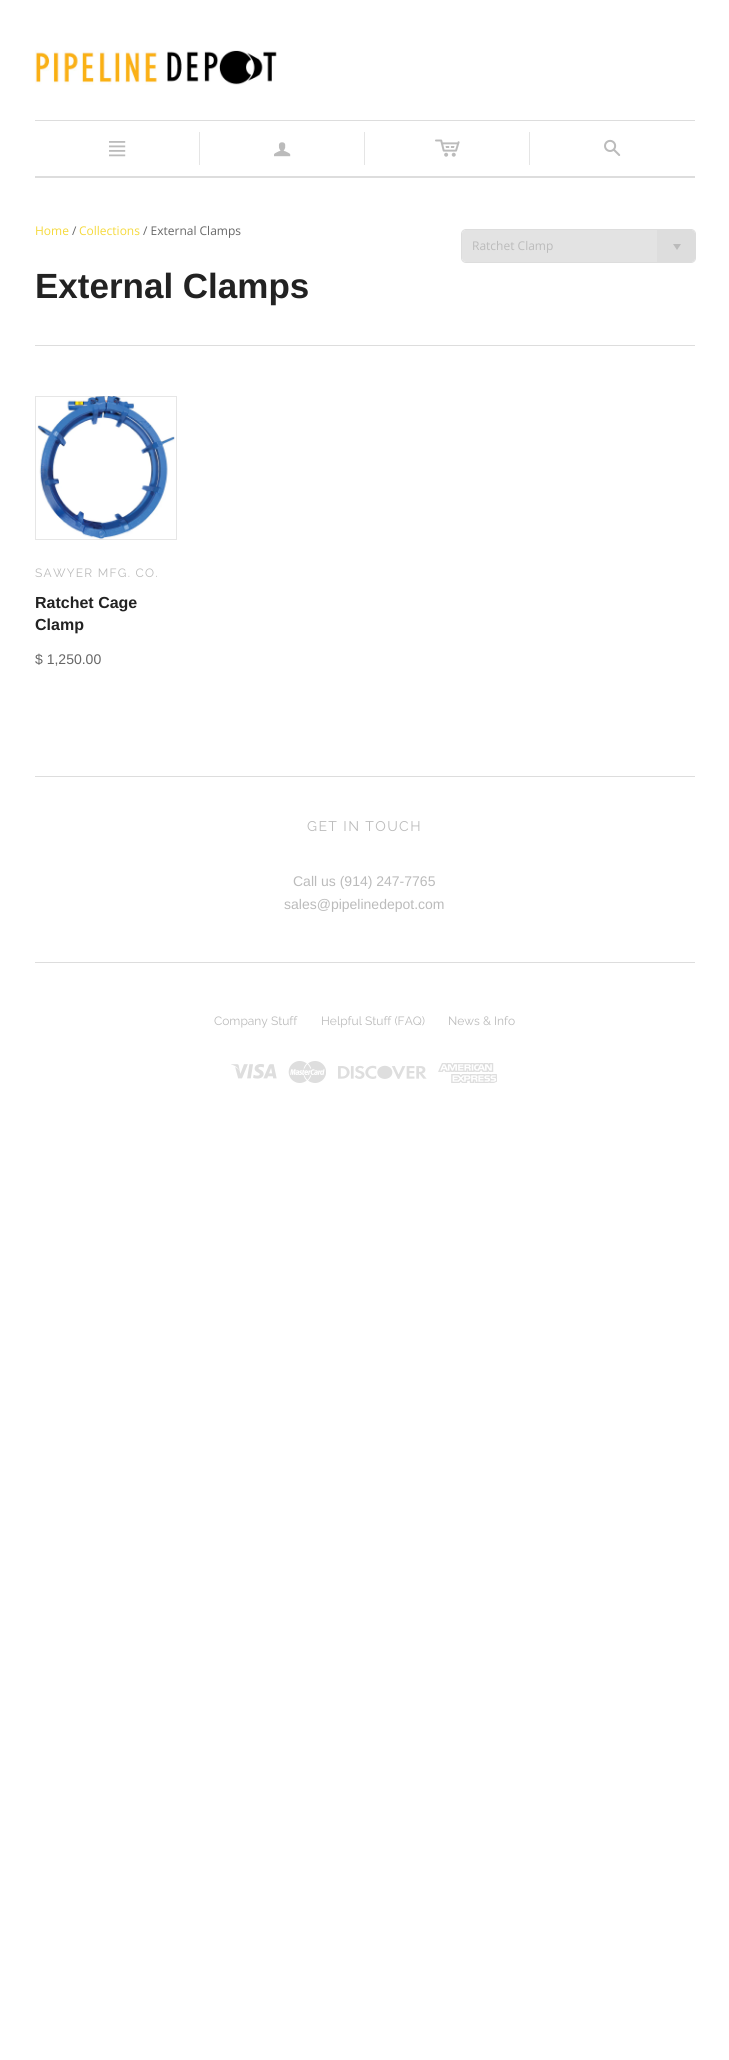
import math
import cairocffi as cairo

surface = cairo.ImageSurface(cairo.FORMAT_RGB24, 729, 2060)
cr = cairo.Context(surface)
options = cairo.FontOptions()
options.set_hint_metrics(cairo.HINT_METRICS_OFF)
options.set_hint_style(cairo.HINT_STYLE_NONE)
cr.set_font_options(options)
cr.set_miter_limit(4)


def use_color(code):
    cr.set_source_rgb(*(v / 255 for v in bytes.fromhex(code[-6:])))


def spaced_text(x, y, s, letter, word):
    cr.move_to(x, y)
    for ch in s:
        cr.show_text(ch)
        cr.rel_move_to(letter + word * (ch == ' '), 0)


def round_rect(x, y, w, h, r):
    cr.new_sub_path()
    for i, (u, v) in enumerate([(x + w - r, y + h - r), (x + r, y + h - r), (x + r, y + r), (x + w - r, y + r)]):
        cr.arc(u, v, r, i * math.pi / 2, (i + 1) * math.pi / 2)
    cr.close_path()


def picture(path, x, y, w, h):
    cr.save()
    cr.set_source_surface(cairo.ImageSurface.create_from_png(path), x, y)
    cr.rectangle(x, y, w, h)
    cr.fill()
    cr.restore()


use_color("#ffffff")
cr.paint()
picture("img1.png", 35, 50, 242, 35)
use_color("#dddddd")
cr.rectangle(35, 120, 660, 1)
cr.fill()
cr.rectangle(35, 176, 660, 2)
cr.fill()
picture("img2.png", 109, 141, 17, 16)
use_color("#e5e5e5")
cr.rectangle(199, 132, 1, 33)
cr.fill()
picture("img3.png", 274, 142, 17, 15)
cr.rectangle(364, 132, 1, 33)
cr.fill()
picture("img4.png", 435, 139, 25, 18)
cr.rectangle(529, 132, 1, 33)
cr.fill()
picture("img5.png", 604, 139, 17, 17)
cr.select_font_face("Open Sans")
cr.set_font_size(12)
use_color("#f5d93b")
cr.move_to(35, 235)
cr.show_text("Home")
use_color("#666666")
cr.move_to(72, 235)
cr.show_text("/")
use_color("#f5d93b")
cr.move_to(79, 235)
cr.show_text("Collections")
use_color("#666666")
cr.move_to(143, 235)
cr.show_text("/ External Clamps")
use_color("#dddddd")
cr.rectangle(35, 345, 660, 1)
cr.fill()
round_rect(461.5, 229.5, 234, 33, 4.5)
cr.set_line_width(1)
cr.stroke()
use_color("#e3e3e3")
round_rect(462, 230, 233, 32, 4)
cr.fill()
use_color("#bbbbbb")
cr.move_to(472, 250)
cr.show_text("Ratchet Clamp")
use_color("#dddddd")
cr.new_path()
cr.move_to(657, 230)
cr.line_to(691, 230)
cr.curve_to(693, 230, 695, 232, 695, 234)
cr.line_to(695, 258)
cr.curve_to(695, 260, 693, 262, 691, 262)
cr.line_to(657, 262)
cr.close_path()
cr.fill()
use_color("#bbbbbb")
cr.new_path()
cr.move_to(673, 244)
cr.line_to(681, 244)
cr.line_to(677, 250)
cr.close_path()
cr.fill()
cr.select_font_face("Liberation Sans", cairo.FONT_SLANT_NORMAL, cairo.FONT_WEIGHT_BOLD)
cr.set_font_size(35)
use_color("#222222")
cr.move_to(35, 298)
cr.show_text("External Clamps")
picture("img6.png", 37, 396, 138, 144)
cr.rectangle(35.5, 396.5, 141, 143)
cr.set_source_rgba(0, 0, 0, 0.1)
cr.stroke()
cr.select_font_face("Raleway")
cr.set_font_size(12)
use_color("#bbbbbb")
spaced_text(35, 577, "SAWYER MFG. CO.", 1.25, 0)
cr.select_font_face("Liberation Sans", cairo.FONT_SLANT_NORMAL, cairo.FONT_WEIGHT_BOLD)
cr.set_font_size(16)
use_color("#222222")
cr.move_to(35, 608)
cr.show_text("Ratchet Cage")
cr.move_to(35, 630)
cr.show_text("Clamp")
cr.select_font_face("Liberation Sans")
cr.set_font_size(14)
use_color("#666666")
cr.move_to(35, 664)
cr.show_text("$ 1,250.00")
use_color("#dddddd")
cr.rectangle(35, 776, 660, 1)
cr.fill()
cr.rectangle(35, 962, 660, 1)
cr.fill()
cr.select_font_face("Raleway")
use_color("#bbbbbb")
spaced_text(307, 831, "GET IN TOUCH", 1.4, 0)
cr.select_font_face("Liberation Sans")
cr.move_to(293, 886)
cr.show_text("Call us (914) 247-7765")
cr.move_to(284, 909)
cr.show_text("sales@pipelinedepot.com")
cr.select_font_face("Raleway")
cr.set_font_size(12)
cr.move_to(214, 1025)
cr.show_text("Company Stuff")
cr.move_to(321, 1025)
cr.show_text("Helpful Stuff (FAQ)")
cr.move_to(448, 1025)
cr.show_text("News & Info")
picture("img7.png", 231, 1064, 46, 15)
picture("img8.png", 288, 1061, 38, 22)
picture("img9.png", 338, 1065, 89, 14)
picture("img10.png", 438, 1063, 59, 20)
surface.write_to_png("result.png")
